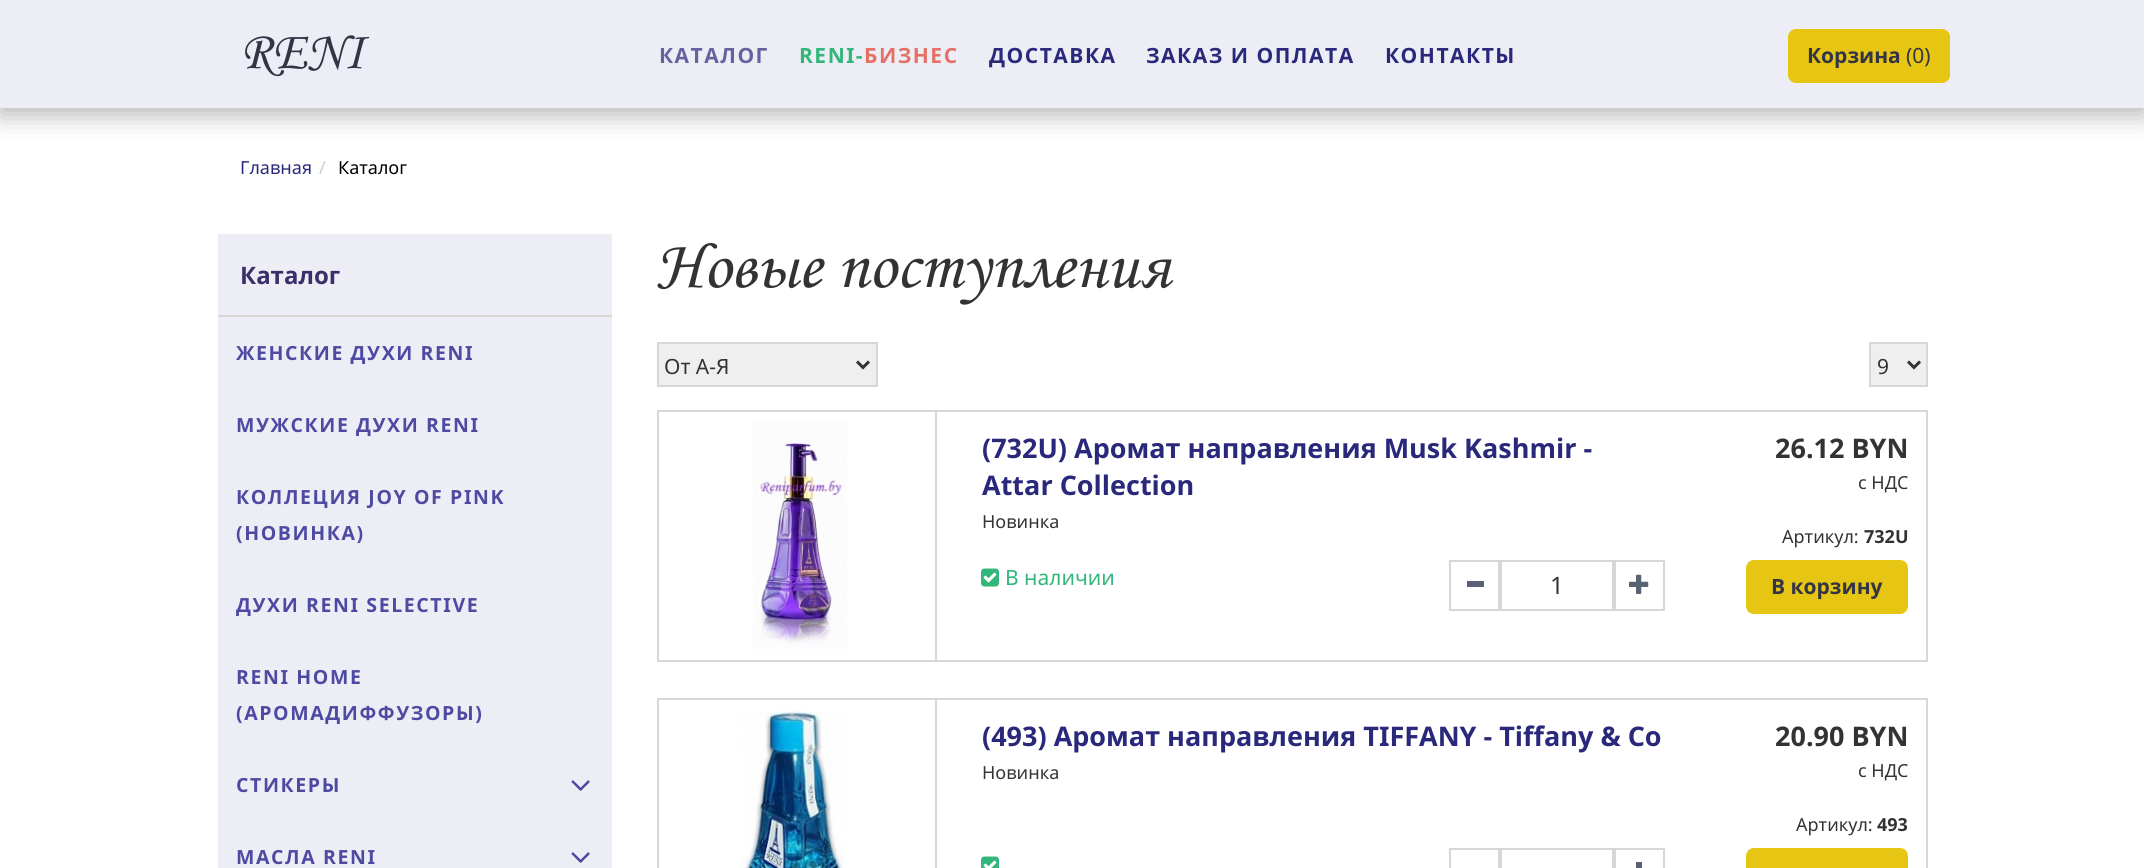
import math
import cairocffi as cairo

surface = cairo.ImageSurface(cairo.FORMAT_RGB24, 2144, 868)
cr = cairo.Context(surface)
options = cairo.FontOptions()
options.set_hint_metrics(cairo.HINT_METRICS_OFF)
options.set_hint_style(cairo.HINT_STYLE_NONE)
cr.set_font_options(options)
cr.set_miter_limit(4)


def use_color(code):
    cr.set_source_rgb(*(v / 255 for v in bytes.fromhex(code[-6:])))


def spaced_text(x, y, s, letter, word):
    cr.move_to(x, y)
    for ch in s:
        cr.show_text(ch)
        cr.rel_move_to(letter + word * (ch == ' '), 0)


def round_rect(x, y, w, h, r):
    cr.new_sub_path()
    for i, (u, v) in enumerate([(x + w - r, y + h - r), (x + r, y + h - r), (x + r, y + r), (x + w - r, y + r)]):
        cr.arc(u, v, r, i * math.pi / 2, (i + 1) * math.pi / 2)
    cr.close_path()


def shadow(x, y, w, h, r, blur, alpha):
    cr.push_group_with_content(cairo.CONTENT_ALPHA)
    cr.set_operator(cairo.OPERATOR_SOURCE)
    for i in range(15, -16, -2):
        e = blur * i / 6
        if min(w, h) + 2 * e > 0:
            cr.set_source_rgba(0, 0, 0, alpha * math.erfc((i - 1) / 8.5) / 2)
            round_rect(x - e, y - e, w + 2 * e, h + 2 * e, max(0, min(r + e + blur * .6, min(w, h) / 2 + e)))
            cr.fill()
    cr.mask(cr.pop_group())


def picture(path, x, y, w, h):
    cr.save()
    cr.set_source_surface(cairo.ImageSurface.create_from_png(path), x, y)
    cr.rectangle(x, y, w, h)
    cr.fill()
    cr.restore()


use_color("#ffffff")
cr.paint()
use_color("#323232")
shadow(0, 6, 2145, 108, 0, 13, 0.39)
use_color("#ededf6")
cr.rectangle(0, 0, 2144, 108)
cr.fill()
cr.select_font_face("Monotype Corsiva", cairo.FONT_SLANT_ITALIC)
cr.set_font_size(54)
use_color("#333444")
cr.move_to(240, 68)
cr.show_text("RENI")
cr.select_font_face("Noto Sans", cairo.FONT_SLANT_NORMAL, cairo.FONT_WEIGHT_BOLD)
cr.set_font_size(21)
use_color("#65639f")
spaced_text(659, 63, "КАТАЛОГ", 1.5, 0)
use_color("#32b67a")
spaced_text(799, 63, "RENI-", 1.5, 0)
use_color("#e57066")
spaced_text(864, 63, "БИЗНЕС", 1.5, 0)
use_color("#2a287a")
spaced_text(989, 63, "ДОСТАВКА", 1.5, 0)
spaced_text(1146, 63, "ЗАКАЗ И ОПЛАТА", 1.5, 0)
spaced_text(1385, 63, "КОНТАКТЫ", 1.5, 0)
use_color("#e7c613")
round_rect(1789, 30, 160, 52, 7)
cr.fill_preserve()
cr.stroke()
use_color("#333444")
cr.move_to(1807, 63)
cr.show_text("Корзина")
cr.select_font_face("Noto Sans")
cr.move_to(1906, 63)
cr.show_text("(0)")
cr.set_font_size(18)
use_color("#2a287a")
cr.move_to(240, 174)
cr.show_text("Главная")
use_color("#cccccc")
cr.move_to(319, 174)
cr.show_text("/")
use_color("#000000")
cr.move_to(338, 174)
cr.show_text("Каталог")
use_color("#ededf6")
cr.rectangle(218, 234, 394, 81)
cr.fill()
use_color("#d7d7d7")
cr.rectangle(218, 315, 394, 2)
cr.fill()
cr.select_font_face("Noto Sans", cairo.FONT_SLANT_NORMAL, cairo.FONT_WEIGHT_BOLD)
cr.set_font_size(24)
use_color("#3b2e69")
cr.move_to(240, 284)
cr.show_text("Каталог")
use_color("#ededf6")
cr.rectangle(218, 317, 394, 432)
cr.fill()
cr.set_font_size(19.5)
use_color("#4e4aa2")
spaced_text(236, 360, "ЖЕНСКИЕ ДУХИ RENI", 1.6, 0)
spaced_text(236, 432, "МУЖСКИЕ ДУХИ RENI", 1.6, 0)
spaced_text(236, 504, "КОЛЛЕЦИЯ JOY OF PINK", 1.6, 0)
spaced_text(236, 540, "(НОВИНКА)", 1.6, 0)
spaced_text(236, 612, "ДУХИ RENI SELECTIVE", 1.6, 0)
spaced_text(236, 684, "RENI HOME", 1.6, 0)
spaced_text(236, 720, "(АРОМАДИФФУЗОРЫ)", 1.6, 0)
use_color("#ededf6")
cr.rectangle(218, 749, 394, 72)
cr.fill()
use_color("#4e4aa2")
spaced_text(236, 792, "СТИКЕРЫ", 1.6, 0)
picture("img1.png", 571, 780, 19, 11)
use_color("#ededf6")
cr.rectangle(218, 821, 394, 47)
cr.fill()
use_color("#4e4aa2")
spaced_text(236, 864, "МАСЛА RENI", 1.6, 0)
picture("img1.png", 571, 852, 19, 11)
cr.select_font_face("Monotype Corsiva", cairo.FONT_SLANT_ITALIC)
cr.set_font_size(69)
use_color("#333333")
cr.move_to(656, 287)
cr.show_text("Новые поступления")
use_color("#efefef")
cr.rectangle(658, 343, 219, 43)
cr.fill_preserve()
use_color("#d7d7d7")
cr.stroke()
cr.new_path()
cr.move_to(857, 361.5)
cr.line_to(863, 367.5)
cr.line_to(869, 361.5)
use_color("#333333")
cr.set_line_width(3)
cr.stroke()
cr.select_font_face("Noto Sans")
cr.set_font_size(21)
cr.move_to(664, 374)
cr.show_text("От А-Я")
use_color("#efefef")
cr.rectangle(1870, 343, 57, 43)
cr.fill_preserve()
use_color("#d7d7d7")
cr.set_line_width(2)
cr.stroke()
cr.new_path()
cr.move_to(1908, 361.5)
cr.line_to(1914, 367.5)
cr.line_to(1920, 361.5)
use_color("#333333")
cr.set_line_width(3)
cr.stroke()
cr.move_to(1877, 374)
cr.show_text("9")
cr.rectangle(658, 411, 1269, 250)
use_color("#d7d7d7")
cr.set_line_width(2)
cr.stroke()
cr.rectangle(935, 411, 2, 249)
cr.fill()
picture("img2.png", 753, 421, 94, 228)
cr.select_font_face("Noto Sans", cairo.FONT_SLANT_NORMAL, cairo.FONT_WEIGHT_BOLD)
cr.set_font_size(27)
use_color("#2a287a")
cr.move_to(982, 458)
cr.show_text("(732U) Аромат направления Musk Kashmir -")
cr.move_to(982, 495)
cr.show_text("Attar Collection")
cr.select_font_face("Noto Sans")
cr.set_font_size(18)
use_color("#333333")
cr.move_to(982, 528)
cr.show_text("Новинка")
cr.select_font_face("Noto Sans", cairo.FONT_SLANT_NORMAL, cairo.FONT_WEIGHT_BOLD)
cr.set_font_size(27)
cr.move_to(1775, 458)
cr.show_text("26.12 BYN")
cr.select_font_face("Noto Sans")
cr.set_font_size(18)
cr.move_to(1858, 489)
cr.show_text("с НДС")
cr.move_to(1782, 543)
cr.show_text("Артикул:")
cr.select_font_face("Noto Sans", cairo.FONT_SLANT_NORMAL, cairo.FONT_WEIGHT_BOLD)
cr.move_to(1864, 543)
cr.show_text("732U")
picture("img3.png", 981, 568, 18, 19)
cr.select_font_face("Noto Sans")
cr.set_font_size(21)
use_color("#32b67a")
cr.move_to(1005, 585)
cr.show_text("В наличии")
cr.rectangle(1450, 561, 49, 49)
use_color("#d7d7d7")
cr.stroke()
use_color("#576273")
cr.rectangle(1467, 581, 17, 6)
cr.fill()
cr.rectangle(1501, 561, 112, 49)
use_color("#d7d7d7")
cr.stroke()
cr.set_font_size(24)
use_color("#333333")
cr.move_to(1550, 594)
cr.show_text("1")
cr.rectangle(1615, 561, 49, 49)
use_color("#d7d7d7")
cr.stroke()
picture("img4.png", 1629, 574, 20, 20)
use_color("#e7c613")
round_rect(1747, 561, 160, 52, 7)
cr.fill_preserve()
cr.stroke()
cr.select_font_face("Noto Sans", cairo.FONT_SLANT_NORMAL, cairo.FONT_WEIGHT_BOLD)
cr.set_font_size(21)
use_color("#333444")
cr.move_to(1771, 594)
cr.show_text("В корзину")
cr.rectangle(658, 699, 1269, 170)
use_color("#d7d7d7")
cr.stroke()
cr.rectangle(935, 699, 2, 169)
cr.fill()
picture("img5.png", 741, 711, 104, 157)
cr.set_font_size(27)
use_color("#2a287a")
cr.move_to(982, 746)
cr.show_text("(493) Аромат направления TIFFANY - Tiffany & Co")
cr.select_font_face("Noto Sans")
cr.set_font_size(18)
use_color("#333333")
cr.move_to(982, 779)
cr.show_text("Новинка")
cr.select_font_face("Noto Sans", cairo.FONT_SLANT_NORMAL, cairo.FONT_WEIGHT_BOLD)
cr.set_font_size(27)
cr.move_to(1775, 746)
cr.show_text("20.90 BYN")
cr.select_font_face("Noto Sans")
cr.set_font_size(18)
cr.move_to(1858, 777)
cr.show_text("с НДС")
cr.move_to(1796, 831)
cr.show_text("Артикул:")
cr.select_font_face("Noto Sans", cairo.FONT_SLANT_NORMAL, cairo.FONT_WEIGHT_BOLD)
cr.move_to(1877, 831)
cr.show_text("493")
picture("img6.png", 981, 856, 18, 12)
cr.rectangle(1450, 849, 49, 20)
use_color("#d7d7d7")
cr.stroke()
cr.rectangle(1501, 849, 112, 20)
cr.stroke()
cr.rectangle(1615, 849, 49, 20)
cr.stroke()
use_color("#576273")
cr.rectangle(1636, 862, 6, 6)
cr.fill()
use_color("#e7c613")
round_rect(1747, 849, 160, 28, 7)
cr.fill_preserve()
cr.stroke()
surface.write_to_png("result.png")
